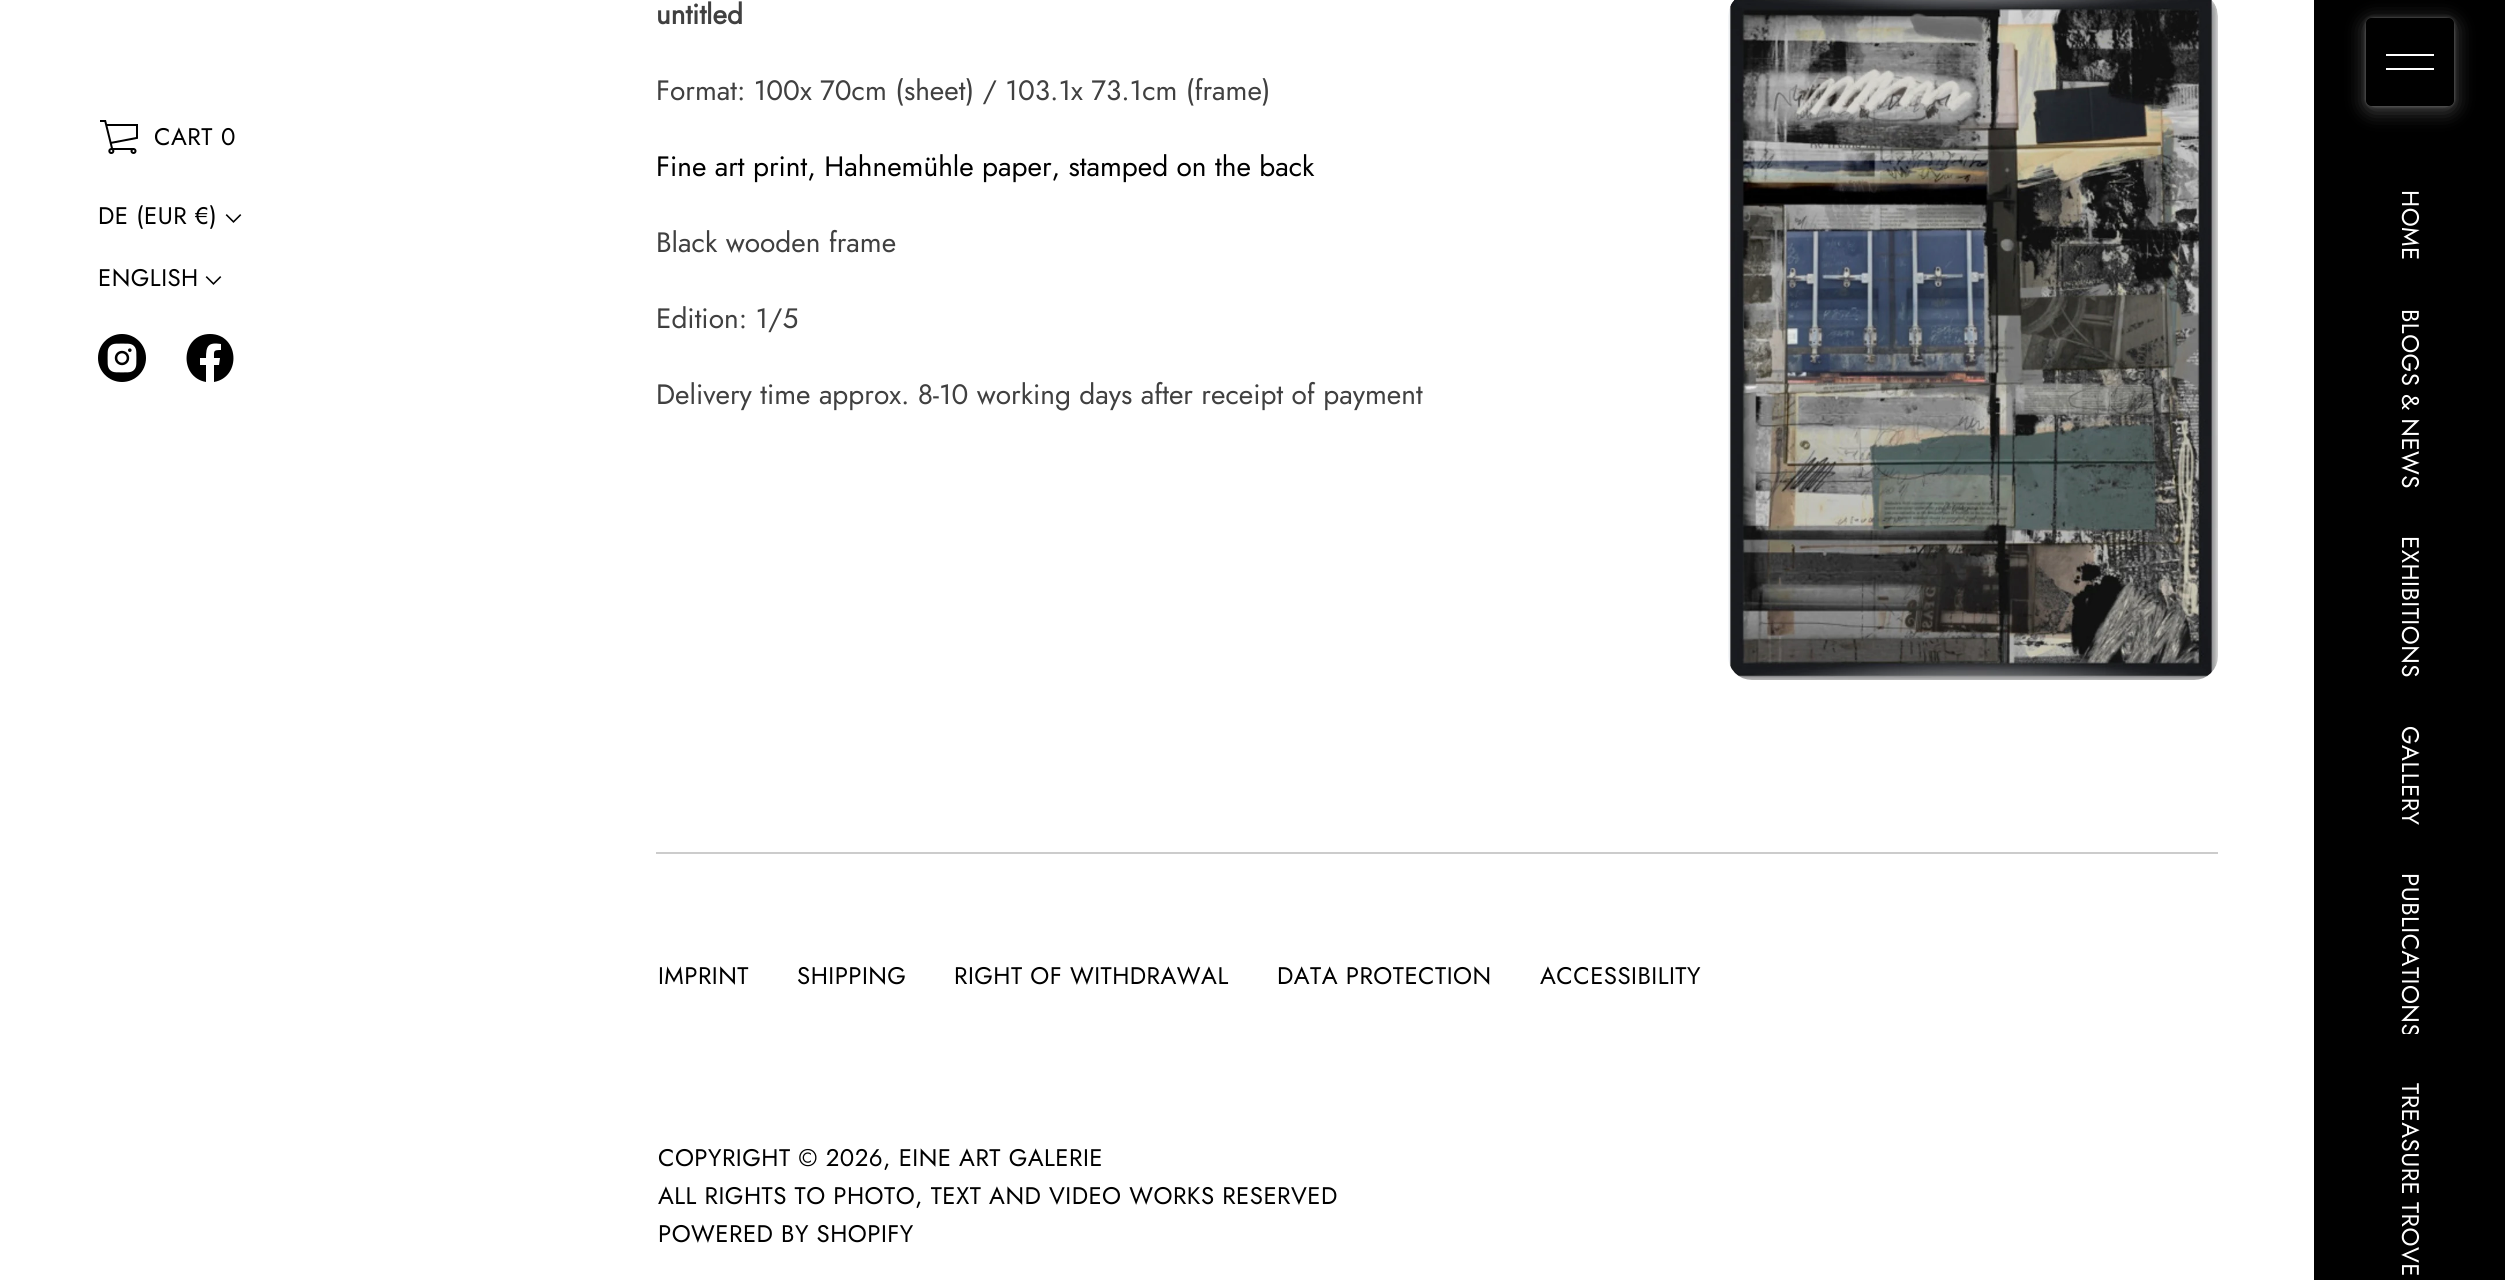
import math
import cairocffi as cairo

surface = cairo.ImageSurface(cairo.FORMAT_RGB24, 2505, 1280)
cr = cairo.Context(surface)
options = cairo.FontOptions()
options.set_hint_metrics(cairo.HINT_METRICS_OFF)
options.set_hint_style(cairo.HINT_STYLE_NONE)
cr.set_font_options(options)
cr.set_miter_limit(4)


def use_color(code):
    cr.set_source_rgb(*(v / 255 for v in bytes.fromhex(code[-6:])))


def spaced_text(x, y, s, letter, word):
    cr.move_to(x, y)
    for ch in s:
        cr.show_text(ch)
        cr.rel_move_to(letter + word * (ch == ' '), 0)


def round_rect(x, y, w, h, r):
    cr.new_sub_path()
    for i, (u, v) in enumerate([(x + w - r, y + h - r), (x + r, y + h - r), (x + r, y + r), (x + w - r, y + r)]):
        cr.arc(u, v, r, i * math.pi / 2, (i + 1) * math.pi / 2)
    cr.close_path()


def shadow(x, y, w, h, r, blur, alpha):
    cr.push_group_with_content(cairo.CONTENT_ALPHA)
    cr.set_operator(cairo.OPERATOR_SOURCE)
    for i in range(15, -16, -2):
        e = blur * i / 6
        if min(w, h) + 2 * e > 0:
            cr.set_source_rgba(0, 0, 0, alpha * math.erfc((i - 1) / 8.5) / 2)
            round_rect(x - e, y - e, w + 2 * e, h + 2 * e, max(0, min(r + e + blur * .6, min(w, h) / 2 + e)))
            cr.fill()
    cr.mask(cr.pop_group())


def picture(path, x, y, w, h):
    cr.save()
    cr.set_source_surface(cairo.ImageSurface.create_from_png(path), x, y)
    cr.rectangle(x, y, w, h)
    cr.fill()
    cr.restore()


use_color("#ffffff")
cr.paint()
picture("img1.png", 100, 120, 38, 34)
cr.select_font_face("Jost")
cr.set_font_size(24)
use_color("#000000")
spaced_text(154, 145, "CART", 0.48, 0)
spaced_text(221, 145, "0", 0.48, 0)
spaced_text(98, 224, "DE (EUR €)", 0.48, 0)
picture("img2.png", 225, 214, 17, 9)
spaced_text(98, 286, "ENGLISH", 0.48, 0)
picture("img2.png", 205, 276, 17, 9)
picture("img3.png", 98, 334, 48, 48)
cr.set_fill_rule(cairo.FILL_RULE_EVEN_ODD)
cr.new_path()
cr.move_to(210, 334)
cr.curve_to(181, 334, 178, 377, 206, 382)
cr.line_to(206, 365)
cr.line_to(200, 365)
cr.line_to(200, 358)
cr.line_to(206, 358)
cr.curve_to(206, 346, 208, 342, 221, 344)
cr.line_to(221, 350)
cr.curve_to(213, 350, 214, 351, 214, 358)
cr.line_to(220, 358)
cr.line_to(219, 365)
cr.line_to(214, 365)
cr.line_to(214, 382)
cr.curve_to(242, 377, 239, 334, 210, 334)
cr.close_path()
cr.fill()
cr.select_font_face("Jost", cairo.FONT_SLANT_NORMAL, cairo.FONT_WEIGHT_BOLD)
cr.set_font_size(28)
use_color("#404040")
cr.move_to(656, 24)
cr.show_text("untitled")
cr.select_font_face("Jost")
cr.move_to(656, 100)
cr.show_text("Format: 100x 70cm (sheet) / 103.1x 73.1cm (frame)")
use_color("#000000")
cr.move_to(656, 176)
cr.show_text("Fine art print, Hahnemühle paper, stamped on the back")
use_color("#404040")
cr.move_to(656, 252)
cr.show_text("Black wooden frame")
cr.move_to(656, 328)
cr.show_text("Edition: 1/5")
cr.move_to(656, 404)
cr.show_text("Delivery time approx. 8-10 working days after receipt of payment")
picture("img4.png", 1728, 0, 490, 680)
use_color("#cccccc")
cr.rectangle(656, 852, 1562, 2)
cr.fill()
cr.set_font_size(24)
use_color("#000000")
spaced_text(658, 984, "IMPRINT", 0.48, 0)
spaced_text(797, 984, "SHIPPING", 0.48, 0)
spaced_text(954, 984, "RIGHT OF WITHDRAWAL", 0.48, 0)
spaced_text(1277, 984, "DATA PROTECTION", 0.48, 0)
spaced_text(1540, 984, "ACCESSIBILITY", 0.48, 0)
spaced_text(658, 1166, "COPYRIGHT © 2026, EINE ART GALERIE", 0.48, 0)
spaced_text(658, 1204, "ALL RIGHTS TO PHOTO, TEXT AND VIDEO WORKS RESERVED", 0.48, 0)
spaced_text(658, 1242, "POWERED BY SHOPIFY", 0.48, 0)
cr.rectangle(2314, 0, 191, 1280)
cr.fill()
cr.save()
cr.new_path()
cr.move_to(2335, 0)
cr.line_to(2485, 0)
cr.line_to(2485, 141)
cr.line_to(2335, 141)
cr.close_path()
cr.move_to(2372, 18)
cr.line_to(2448, 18)
cr.curve_to(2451.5, 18, 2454, 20.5, 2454, 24)
cr.line_to(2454, 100)
cr.curve_to(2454, 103.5, 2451.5, 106, 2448, 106)
cr.line_to(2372, 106)
cr.curve_to(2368.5, 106, 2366, 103.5, 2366, 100)
cr.line_to(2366, 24)
cr.curve_to(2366, 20.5, 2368.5, 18, 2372, 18)
cr.close_path()
cr.clip()
use_color("#ffffff")
shadow(2366, 22, 88, 88, 6, 10, 0.3)
cr.restore()
cr.save()
cr.new_path()
cr.move_to(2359, 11)
cr.line_to(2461, 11)
cr.line_to(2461, 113)
cr.line_to(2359, 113)
cr.close_path()
cr.move_to(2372, 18)
cr.line_to(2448, 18)
cr.curve_to(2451.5, 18, 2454, 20.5, 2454, 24)
cr.line_to(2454, 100)
cr.curve_to(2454, 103.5, 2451.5, 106, 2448, 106)
cr.line_to(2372, 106)
cr.curve_to(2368.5, 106, 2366, 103.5, 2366, 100)
cr.line_to(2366, 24)
cr.curve_to(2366, 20.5, 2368.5, 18, 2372, 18)
cr.close_path()
cr.clip()
use_color("#ffffff")
shadow(2366, 18, 88, 88, 6, 2, 0.3)
cr.restore()
use_color("#ffffff")
cr.set_fill_rule(cairo.FILL_RULE_WINDING)
cr.new_path()
cr.move_to(2386, 54)
cr.line_to(2386, 56)
cr.line_to(2434, 56)
cr.line_to(2434, 54)
cr.close_path()
cr.move_to(2386, 70)
cr.line_to(2434, 70)
cr.line_to(2434, 68)
cr.line_to(2386, 68)
cr.close_path()
cr.fill()
cr.save()
cr.translate(2402, 190)
cr.rotate(90 * math.pi / 180)
spaced_text(0, 0, "HOME", 0.48, 0)
cr.restore()
cr.save()
cr.translate(2402, 309)
cr.rotate(90 * math.pi / 180)
spaced_text(0, 0, "BLOGS & NEWS", 0.48, 0)
cr.restore()
cr.save()
cr.translate(2402, 536)
cr.rotate(90 * math.pi / 180)
spaced_text(0, 0, "EXHIBITIONS", 0.48, 0)
cr.restore()
cr.save()
cr.translate(2402, 726)
cr.rotate(90 * math.pi / 180)
spaced_text(0, 0, "GALLERY", 0.48, 0)
cr.restore()
cr.save()
cr.rectangle(2394, 872, 32, 162)
cr.clip()
cr.save()
cr.translate(2402, 873)
cr.rotate(90 * math.pi / 180)
spaced_text(0, 0, "PUBLICATIONS", 0.48, 0)
cr.restore()
cr.restore()
cr.save()
cr.translate(2402, 1083)
cr.rotate(90 * math.pi / 180)
spaced_text(0, 0, "TREASURE TROVE", 0.48, -1)
cr.restore()
surface.write_to_png("result.png")
